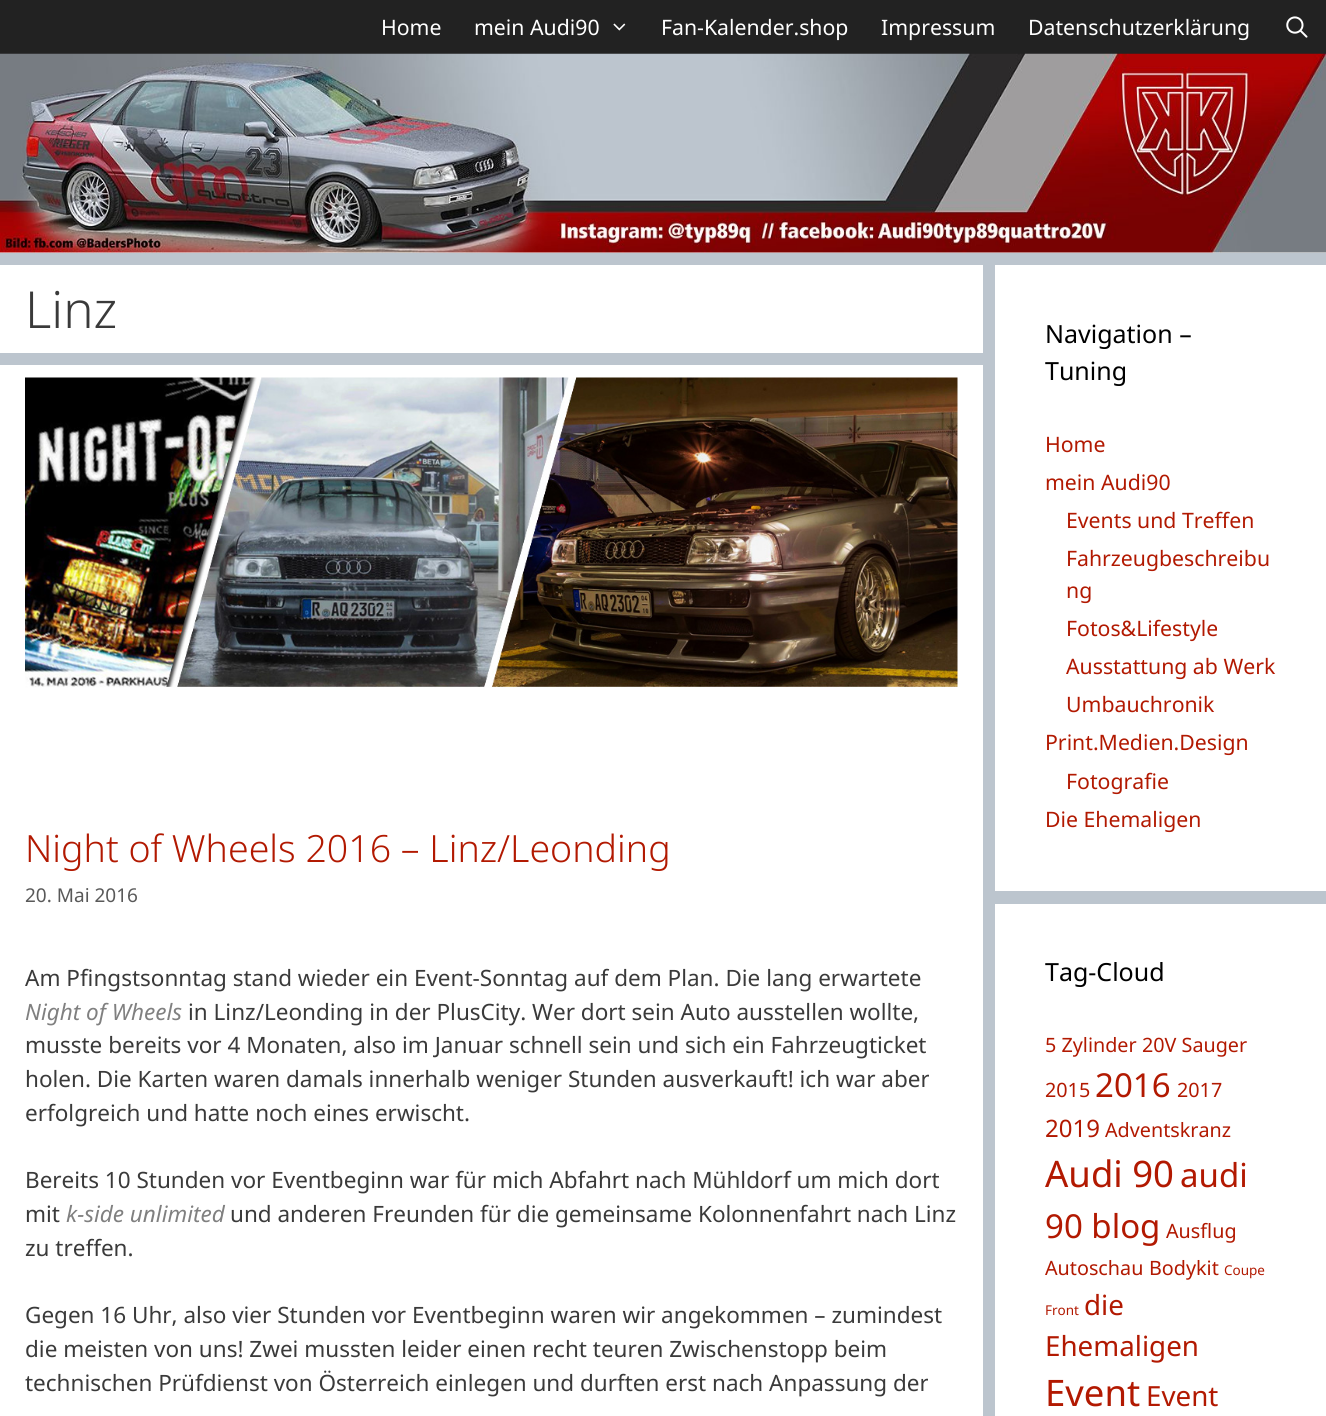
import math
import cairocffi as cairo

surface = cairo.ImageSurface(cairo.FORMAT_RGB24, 1326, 1416)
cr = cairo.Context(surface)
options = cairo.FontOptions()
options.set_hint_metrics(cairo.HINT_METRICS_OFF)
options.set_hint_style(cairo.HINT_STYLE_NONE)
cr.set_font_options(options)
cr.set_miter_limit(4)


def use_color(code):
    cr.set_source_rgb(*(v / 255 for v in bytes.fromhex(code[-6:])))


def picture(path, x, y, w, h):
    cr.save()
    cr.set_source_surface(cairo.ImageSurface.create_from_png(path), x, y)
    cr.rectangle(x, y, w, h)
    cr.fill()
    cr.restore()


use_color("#bcc5ce")
cr.paint()
use_color("#222222")
cr.rectangle(0, 0, 1326, 54)
cr.fill()
cr.select_font_face("Noto Sans")
cr.set_font_size(21.25)
use_color("#ffffff")
cr.move_to(381, 35)
cr.show_text("Home")
cr.move_to(474, 35)
cr.show_text("mein Audi90")
picture("img1.png", 613, 23, 13, 8)
cr.move_to(661, 35)
cr.show_text("Fan-Kalender.shop")
cr.move_to(881, 35)
cr.show_text("Impressum")
cr.move_to(1028, 35)
cr.show_text("Datenschutzerklärung")
picture("img2.png", 1286, 16, 22, 22)
cr.rectangle(0, 252, 1326, 1)
cr.fill()
picture("img3.png", 0, 53, 1326, 200)
cr.rectangle(0, 265, 983, 88)
cr.fill()
cr.select_font_face("Noto Sans Light")
cr.set_font_size(51)
use_color("#3a3a3a")
cr.move_to(25, 328)
cr.show_text("Linz")
use_color("#ffffff")
cr.rectangle(0, 365, 983, 1051)
cr.fill()
picture("img4.png", 25, 377, 933, 311)
cr.set_font_size(37.5)
use_color("#b21901")
cr.move_to(25, 862)
cr.show_text("Night of Wheels 2016 – Linz/Leonding")
cr.select_font_face("Noto Sans")
cr.set_font_size(19)
use_color("#595959")
cr.move_to(25, 902)
cr.show_text("20. Mai 2016")
cr.set_font_size(22.5)
use_color("#3a3a3a")
cr.move_to(25, 986)
cr.show_text("Am Pfingstsonntag stand wieder ein Event-Sonntag auf dem Plan. Die lang erwartete")
cr.select_font_face("Noto Sans", cairo.FONT_SLANT_ITALIC)
use_color("#808080")
cr.move_to(25, 1020)
cr.show_text("Night of Wheels")
cr.select_font_face("Noto Sans")
use_color("#3a3a3a")
cr.move_to(188, 1020)
cr.show_text("in Linz/Leonding in der PlusCity. Wer dort sein Auto ausstellen wollte,")
cr.move_to(25, 1053)
cr.show_text("musste bereits vor 4 Monaten, also im Januar schnell sein und sich ein Fahrzeugticket")
cr.move_to(25, 1087)
cr.show_text("holen. Die Karten waren damals innerhalb weniger Stunden ausverkauft! ich war aber")
cr.move_to(25, 1121)
cr.show_text("erfolgreich und hatte noch eines erwischt.")
cr.move_to(25, 1188)
cr.show_text("Bereits 10 Stunden vor Eventbeginn war für mich Abfahrt nach Mühldorf um mich dort")
cr.move_to(25, 1222)
cr.show_text("mit")
cr.select_font_face("Noto Sans", cairo.FONT_SLANT_ITALIC)
use_color("#808080")
cr.move_to(66, 1222)
cr.show_text("k-side unlimited")
cr.select_font_face("Noto Sans")
use_color("#3a3a3a")
cr.move_to(230, 1222)
cr.show_text("und anderen Freunden für die gemeinsame Kolonnenfahrt nach Linz")
cr.move_to(25, 1256)
cr.show_text("zu treffen.")
cr.move_to(25, 1323)
cr.show_text("Gegen 16 Uhr, also vier Stunden vor Eventbeginn waren wir angekommen – zumindest")
cr.move_to(25, 1357)
cr.show_text("die meisten von uns! Zwei mussten leider einen recht teuren Zwischenstopp beim")
cr.move_to(25, 1391)
cr.show_text("technischen Prüfdienst von Österreich einlegen und durften erst nach Anpassung der")
use_color("#ffffff")
cr.rectangle(995, 265, 331, 626)
cr.fill()
cr.set_font_size(25)
use_color("#000000")
cr.move_to(1045, 343)
cr.show_text("Navigation –")
cr.move_to(1045, 380)
cr.show_text("Tuning")
cr.set_font_size(21.25)
use_color("#b21901")
cr.move_to(1045, 452)
cr.show_text("Home")
cr.move_to(1045, 490)
cr.show_text("mein Audi90")
cr.move_to(1066, 528)
cr.show_text("Events und Treffen")
cr.move_to(1066, 566)
cr.show_text("Fahrzeugbeschreibu")
cr.move_to(1066, 598)
cr.show_text("ng")
cr.move_to(1066, 636)
cr.show_text("Fotos&Lifestyle")
cr.move_to(1066, 674)
cr.show_text("Ausstattung ab Werk")
cr.move_to(1066, 712)
cr.show_text("Umbauchronik")
cr.move_to(1045, 750)
cr.show_text("Print.Medien.Design")
cr.move_to(1066, 789)
cr.show_text("Fotografie")
cr.move_to(1045, 827)
cr.show_text("Die Ehemaligen")
use_color("#ffffff")
cr.rectangle(995, 904, 331, 512)
cr.fill()
cr.set_font_size(25)
use_color("#000000")
cr.move_to(1045, 981)
cr.show_text("Tag-Cloud")
cr.set_font_size(19.75)
use_color("#b21901")
cr.move_to(1045, 1052)
cr.show_text("5 Zylinder")
cr.move_to(1142, 1052)
cr.show_text("20V Sauger")
cr.move_to(1045, 1097)
cr.show_text("2015")
cr.set_font_size(33)
cr.move_to(1095, 1097)
cr.show_text("2016")
cr.set_font_size(19.75)
cr.move_to(1177, 1097)
cr.show_text("2017")
cr.set_font_size(24)
cr.move_to(1045, 1137)
cr.show_text("2019")
cr.set_font_size(19.75)
cr.move_to(1105, 1137)
cr.show_text("Adventskranz")
cr.set_font_size(36.5)
cr.move_to(1045, 1187)
cr.show_text("Audi 90")
cr.set_font_size(33)
cr.move_to(1180, 1187)
cr.show_text("audi")
cr.move_to(1045, 1238)
cr.show_text("90 blog")
cr.set_font_size(19.75)
cr.move_to(1166, 1238)
cr.show_text("Ausflug")
cr.move_to(1045, 1275)
cr.show_text("Autoschau")
cr.move_to(1149, 1275)
cr.show_text("Bodykit")
cr.set_font_size(13.5)
cr.move_to(1224, 1275)
cr.show_text("Coupe")
cr.move_to(1045, 1315)
cr.show_text("Front")
cr.set_font_size(27.75)
cr.move_to(1084, 1315)
cr.show_text("die")
cr.move_to(1045, 1356)
cr.show_text("Ehemaligen")
cr.set_font_size(36.5)
cr.move_to(1045, 1406)
cr.show_text("Event")
cr.set_font_size(27.75)
cr.move_to(1146, 1406)
cr.show_text("Event")
surface.write_to_png("result.png")
